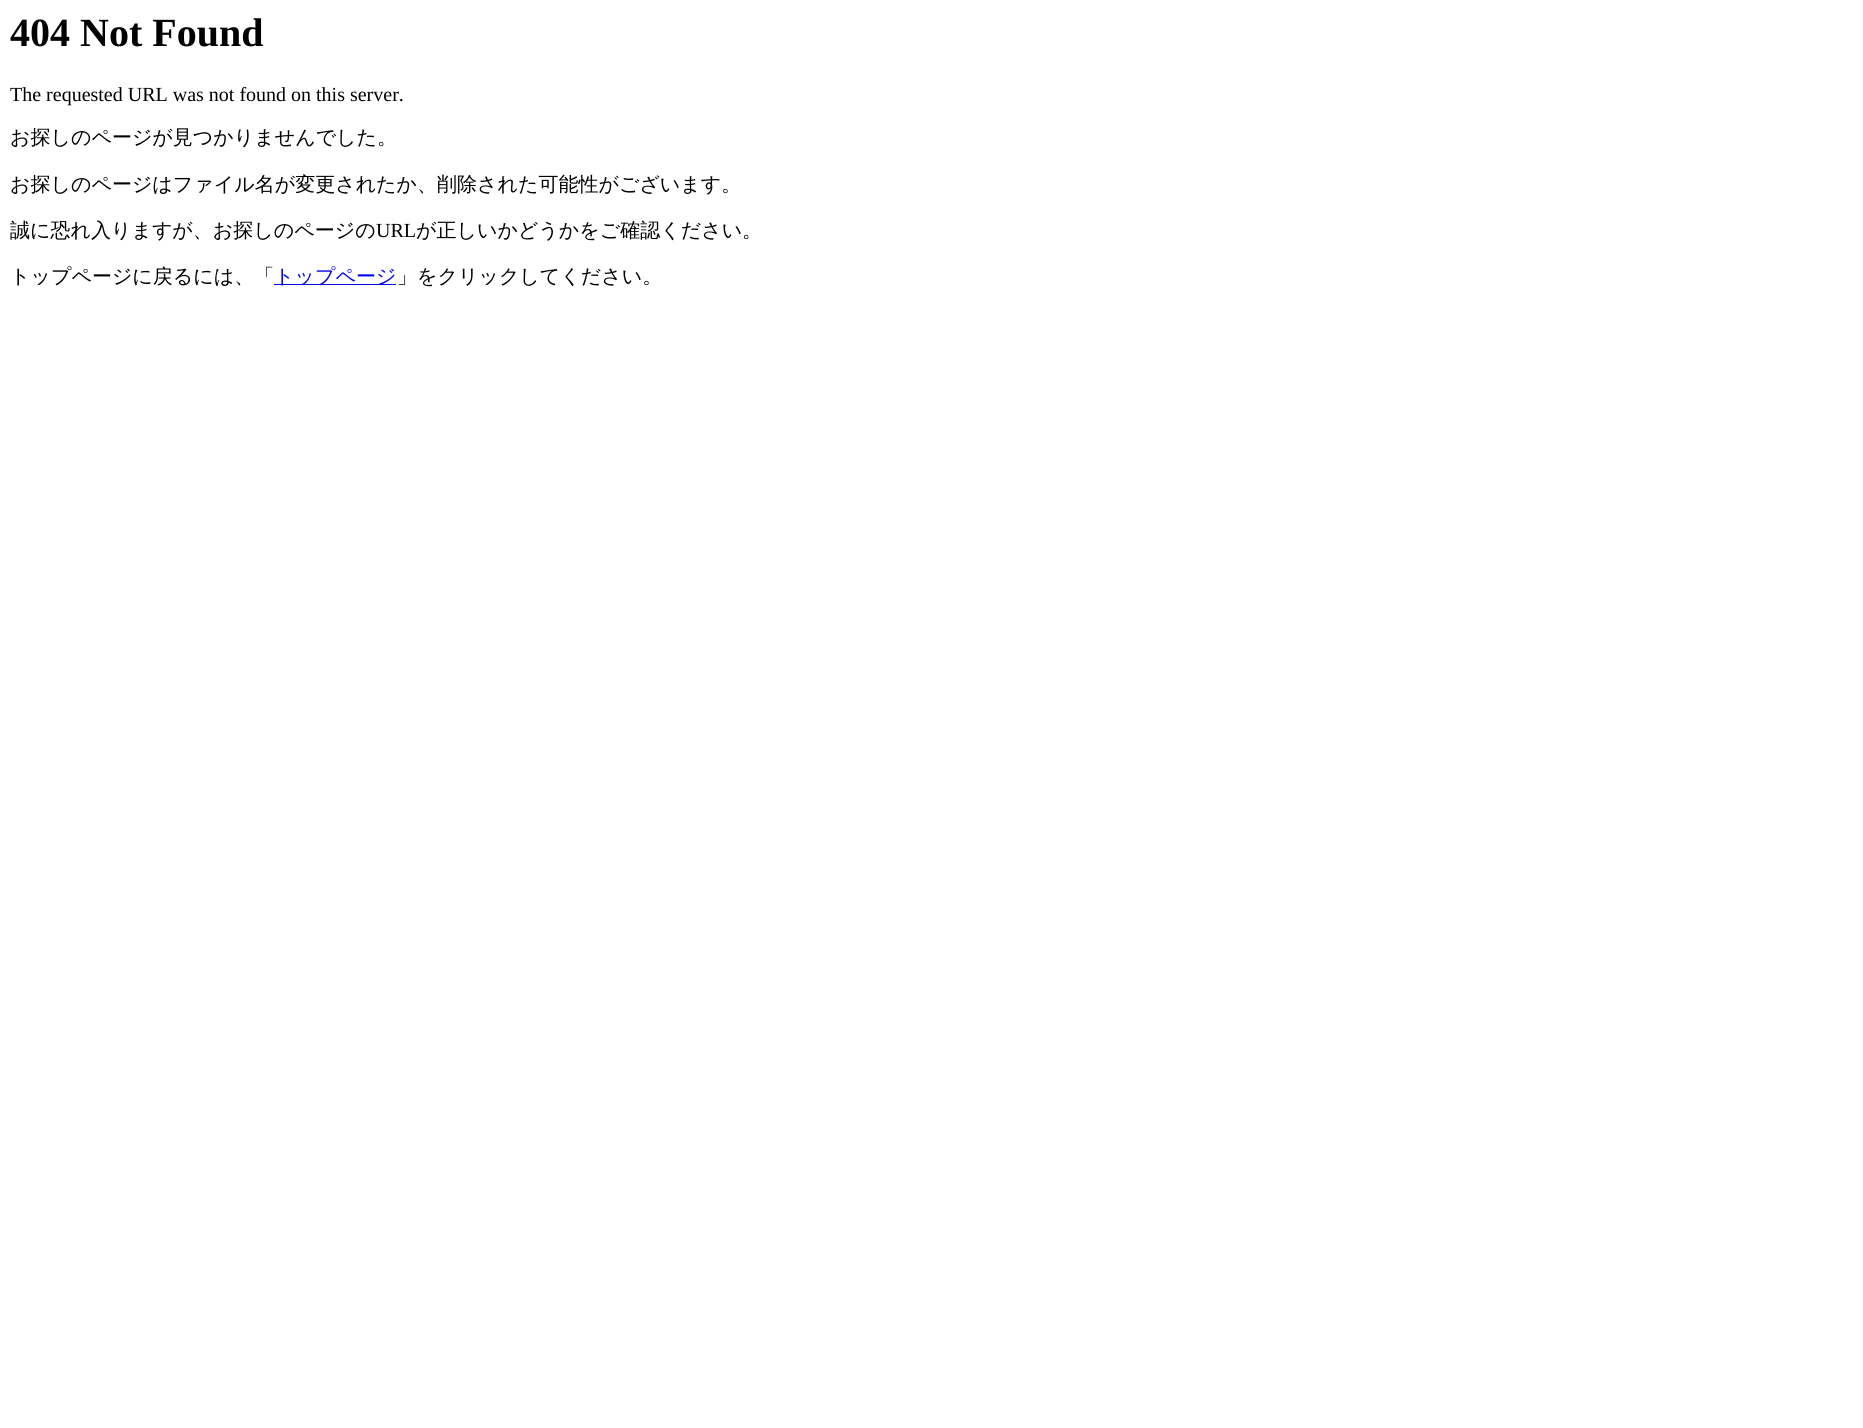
import math
import cairocffi as cairo

surface = cairo.ImageSurface(cairo.FORMAT_RGB24, 1863, 1428)
cr = cairo.Context(surface)
options = cairo.FontOptions()
options.set_hint_metrics(cairo.HINT_METRICS_OFF)
options.set_hint_style(cairo.HINT_STYLE_NONE)
cr.set_font_options(options)
cr.set_miter_limit(4)


def use_color(code):
    cr.set_source_rgb(*(v / 255 for v in bytes.fromhex(code[-6:])))


use_color("#ffffff")
cr.paint()
cr.select_font_face("Liberation Serif", cairo.FONT_SLANT_NORMAL, cairo.FONT_WEIGHT_BOLD)
cr.set_font_size(40)
use_color("#000000")
cr.move_to(10, 46)
cr.show_text("404 Not Found")
cr.select_font_face("Liberation Serif")
cr.set_font_size(20)
cr.move_to(10, 101)
cr.show_text("The requested URL was not found on this server.")
cr.select_font_face("WenQuanYi Zen Hei Medium")
cr.move_to(10, 144)
cr.show_text("お探しのページが見つかりませんでした。")
cr.move_to(10, 191)
cr.show_text("お探しのページはファイル名が変更されたか、削除された可能性がございます。")
cr.move_to(10, 237)
cr.show_text("誠に恐れ入りますが、お探しのページの")
cr.select_font_face("Liberation Serif")
cr.move_to(376, 237)
cr.show_text("URL")
cr.select_font_face("WenQuanYi Zen Hei Medium")
cr.move_to(416, 237)
cr.show_text("が正しいかどうかをご確認ください。")
cr.move_to(10, 283)
cr.show_text("トップページに戻るには、「")
use_color("#0000ee")
cr.rectangle(274, 284, 122, 1)
cr.fill()
cr.move_to(274, 283)
cr.show_text("トップページ")
use_color("#000000")
cr.move_to(397, 283)
cr.show_text("」をクリックしてください。")
surface.write_to_png("result.png")
